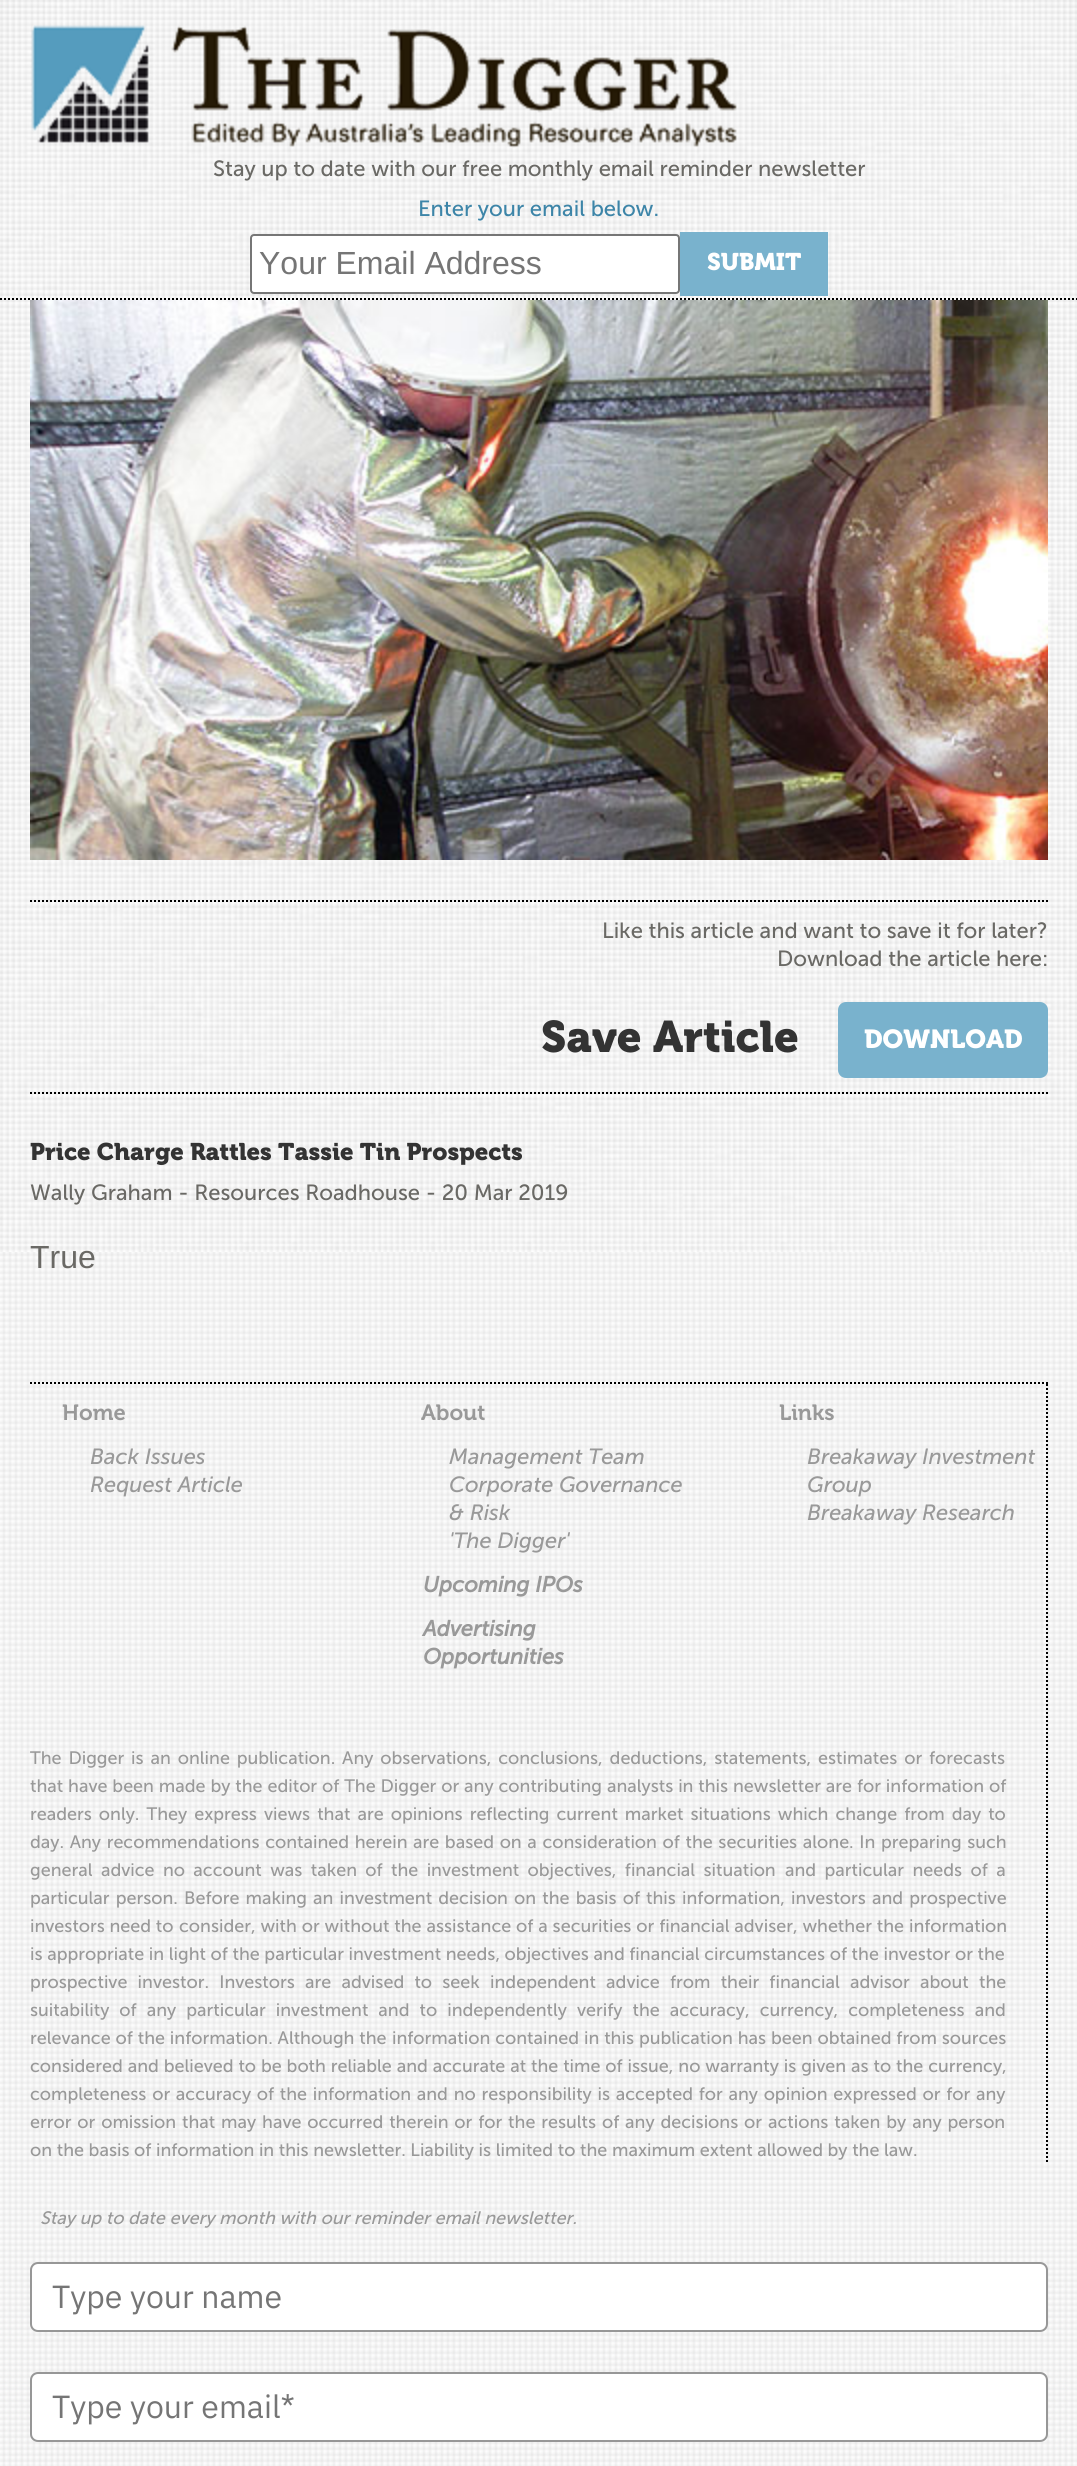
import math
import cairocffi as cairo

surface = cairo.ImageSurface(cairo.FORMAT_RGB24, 1077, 2466)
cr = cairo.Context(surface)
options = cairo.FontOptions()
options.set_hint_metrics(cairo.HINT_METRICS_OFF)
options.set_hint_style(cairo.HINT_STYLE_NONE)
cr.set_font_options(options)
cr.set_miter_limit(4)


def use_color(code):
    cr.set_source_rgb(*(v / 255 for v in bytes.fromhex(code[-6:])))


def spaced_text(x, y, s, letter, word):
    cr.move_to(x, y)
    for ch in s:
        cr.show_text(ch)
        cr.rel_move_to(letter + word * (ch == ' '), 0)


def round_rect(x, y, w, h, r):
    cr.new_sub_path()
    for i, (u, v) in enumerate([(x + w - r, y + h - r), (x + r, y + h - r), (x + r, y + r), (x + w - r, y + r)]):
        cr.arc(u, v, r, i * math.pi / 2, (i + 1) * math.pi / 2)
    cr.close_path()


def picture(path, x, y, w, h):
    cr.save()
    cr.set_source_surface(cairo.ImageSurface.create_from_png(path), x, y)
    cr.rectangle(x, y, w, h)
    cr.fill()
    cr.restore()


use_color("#ffffff")
cr.paint()
picture("img1.png", 0, 1252, 1077, 1214)
picture("img2.png", 0, 0, 1077, 1252)
cr.new_path()
cr.move_to(0, 299)
cr.line_to(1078, 299)
use_color("#000000")
cr.set_dash([2, 2])
cr.stroke()
picture("img3.png", 31, 25, 706, 123)
cr.select_font_face("Museo Sans")
cr.set_font_size(22)
use_color("#6a6965")
cr.move_to(213, 176)
cr.show_text("Stay up to date with our free monthly email reminder newsletter")
use_color("#3d85a8")
cr.move_to(418, 216)
cr.show_text("Enter your email below.")
use_color("#ffffff")
round_rect(251, 235, 428, 58, 3)
cr.fill_preserve()
use_color("#767676")
cr.set_dash([])
cr.stroke()
cr.select_font_face("Liberation Sans")
cr.set_font_size(32)
use_color("#757575")
cr.move_to(259, 274)
cr.show_text("Your Email Address")
use_color("#79b2cd")
cr.rectangle(680, 232, 148, 64)
cr.fill()
cr.select_font_face("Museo")
cr.set_font_size(24)
use_color("#ffffff")
cr.move_to(707, 270)
cr.show_text("SUBMIT")
picture("img4.png", 30, 300, 1018, 560)
cr.new_path()
cr.move_to(30, 901)
cr.line_to(1048, 901)
use_color("#000000")
cr.set_dash([2, 2])
cr.stroke()
cr.new_path()
cr.move_to(30, 1093)
cr.line_to(1048, 1093)
cr.stroke()
cr.select_font_face("Museo Sans")
cr.set_font_size(22)
use_color("#6a6965")
cr.move_to(602, 938)
cr.show_text("Like this article and want to save it for later?")
cr.move_to(777, 966)
cr.show_text("Download the article here:")
cr.select_font_face("Museo")
cr.set_font_size(44)
use_color("#333333")
cr.move_to(541, 1052)
cr.show_text("Save Article")
use_color("#79b2cd")
round_rect(839, 1003, 208, 74, 7)
cr.fill_preserve()
cr.set_dash([])
cr.stroke()
cr.set_font_size(26)
use_color("#ffffff")
cr.move_to(864, 1048)
cr.show_text("DOWNLOAD")
cr.set_font_size(24)
use_color("#333333")
cr.move_to(30, 1160)
cr.show_text("Price Charge Rattles Tassie Tin Prospects")
cr.select_font_face("Museo Sans")
cr.set_font_size(22)
use_color("#6a6965")
cr.move_to(30, 1200)
cr.show_text("Wally Graham - Resources Roadhouse - 20 Mar 2019")
cr.select_font_face("Liberation Sans")
cr.set_font_size(32)
cr.move_to(30, 1268)
cr.show_text("True")
cr.new_path()
cr.move_to(30, 1383)
cr.line_to(1048, 1383)
use_color("#000000")
cr.set_dash([2, 2])
cr.stroke()
cr.new_path()
cr.move_to(1047, 1384)
cr.line_to(1047, 2164)
cr.stroke()
cr.select_font_face("Museo SemiBold")
cr.set_font_size(22)
use_color("#999999")
cr.move_to(62, 1420)
cr.show_text("Home")
cr.select_font_face("Museo Sans", cairo.FONT_SLANT_ITALIC)
cr.move_to(90, 1464)
cr.show_text("Back Issues")
cr.move_to(90, 1492)
cr.show_text("Request Article")
cr.select_font_face("Museo SemiBold")
cr.move_to(421, 1420)
cr.show_text("About")
cr.select_font_face("Museo Sans", cairo.FONT_SLANT_ITALIC)
cr.move_to(449, 1464)
cr.show_text("Management Team")
cr.move_to(449, 1492)
cr.show_text("Corporate Governance")
cr.move_to(449, 1520)
cr.show_text("& Risk")
cr.move_to(449, 1548)
cr.show_text("'The Digger'")
cr.select_font_face("Museo Sans", cairo.FONT_SLANT_ITALIC, cairo.FONT_WEIGHT_BOLD)
cr.move_to(423, 1592)
cr.show_text("Upcoming IPOs")
cr.move_to(423, 1636)
cr.show_text("Advertising")
cr.move_to(423, 1664)
cr.show_text("Opportunities")
cr.select_font_face("Museo SemiBold")
cr.move_to(779, 1420)
cr.show_text("Links")
cr.select_font_face("Museo Sans", cairo.FONT_SLANT_ITALIC)
cr.move_to(807, 1464)
cr.show_text("Breakaway Investment")
cr.move_to(807, 1492)
cr.show_text("Group")
cr.move_to(807, 1520)
cr.show_text("Breakaway Research")
cr.select_font_face("Museo Sans")
cr.set_font_size(18)
spaced_text(30, 1764, "The Digger is an online publication. Any observations, conclusions, deductions, statements, estimates or forecasts", 0, 2.25)
spaced_text(30, 1792, "that have been made by the editor of The Digger or any contributing analysts in this newsletter are for information of", 0, 0.25)
spaced_text(30, 1820, "readers only. They express views that are opinions reflecting current market situations which change from day to", 0, 2.4)
spaced_text(30, 1848, "day. Any recommendations contained herein", 0, 1)
spaced_text(413, 1848, "are based on a consideration of the securities alone. In preparing such", 0, 1)
spaced_text(30, 1876, "general advice no account was taken of the investment objectives, financial situation", 0, 3.75)
spaced_text(785, 1876, "and particular needs of a", 0, 3.75)
spaced_text(30, 1904, "particular person. Before making an investment decision on the basis of this information, investors and prospective", 0, 1.5)
cr.move_to(30, 1932)
cr.show_text("investors need to")
spaced_text(179, 1932, "consider, with or without the assistance of a securities or financial adviser, whether the information", 0, 0.25)
cr.move_to(30, 1960)
cr.show_text("is appropriate in light of the particular investment needs, objectives and financial circumstances of the investor or the")
spaced_text(30, 1988, "prospective investor. Investors are advised to seek independent advice from their financial advisor", 0, 5.6)
spaced_text(920, 1988, "about the", 0, 5.6)
spaced_text(30, 2016, "suitability of any particular investment and to independently verify the accuracy, currency, completeness and", 0, 5.4)
spaced_text(30, 2044, "relevance of the information. Although the", 0, 0.25)
spaced_text(392, 2044, "information contained in this publication has been obtained from sources", 0, 0.25)
spaced_text(30, 2072, "considered and believed to be both reliable and accurate at the time of issue, no warranty is given as to the currency,", 0, 0.25)
spaced_text(30, 2100, "completeness or accuracy of the information and no responsibility is accepted for any opinion expressed or for any", 0, 1.1)
spaced_text(30, 2128, "error or omission", 0, 1.25)
spaced_text(182, 2128, "that may have occurred therein or for the results of any decisions or actions taken by any person", 0, 1.25)
cr.move_to(30, 2156)
cr.show_text("on the basis of information in this newsletter. Liability is limited to the maximum extent allowed by the law.")
cr.select_font_face("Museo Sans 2", cairo.FONT_SLANT_ITALIC)
cr.move_to(40, 2224)
cr.show_text("Stay up to date every month with our reminder email newsletter.")
use_color("#ffffff")
round_rect(31, 2263, 1016, 68, 7)
cr.fill_preserve()
use_color("#979797")
cr.set_dash([])
cr.stroke()
cr.select_font_face("IBM Plex Sans")
cr.set_font_size(32)
use_color("#757575")
cr.move_to(52, 2308)
cr.show_text("Type your name")
use_color("#ffffff")
round_rect(31, 2373, 1016, 68, 7)
cr.fill_preserve()
use_color("#979797")
cr.stroke()
use_color("#757575")
cr.move_to(52, 2418)
cr.show_text("Type your email*")
surface.write_to_png("result.png")
